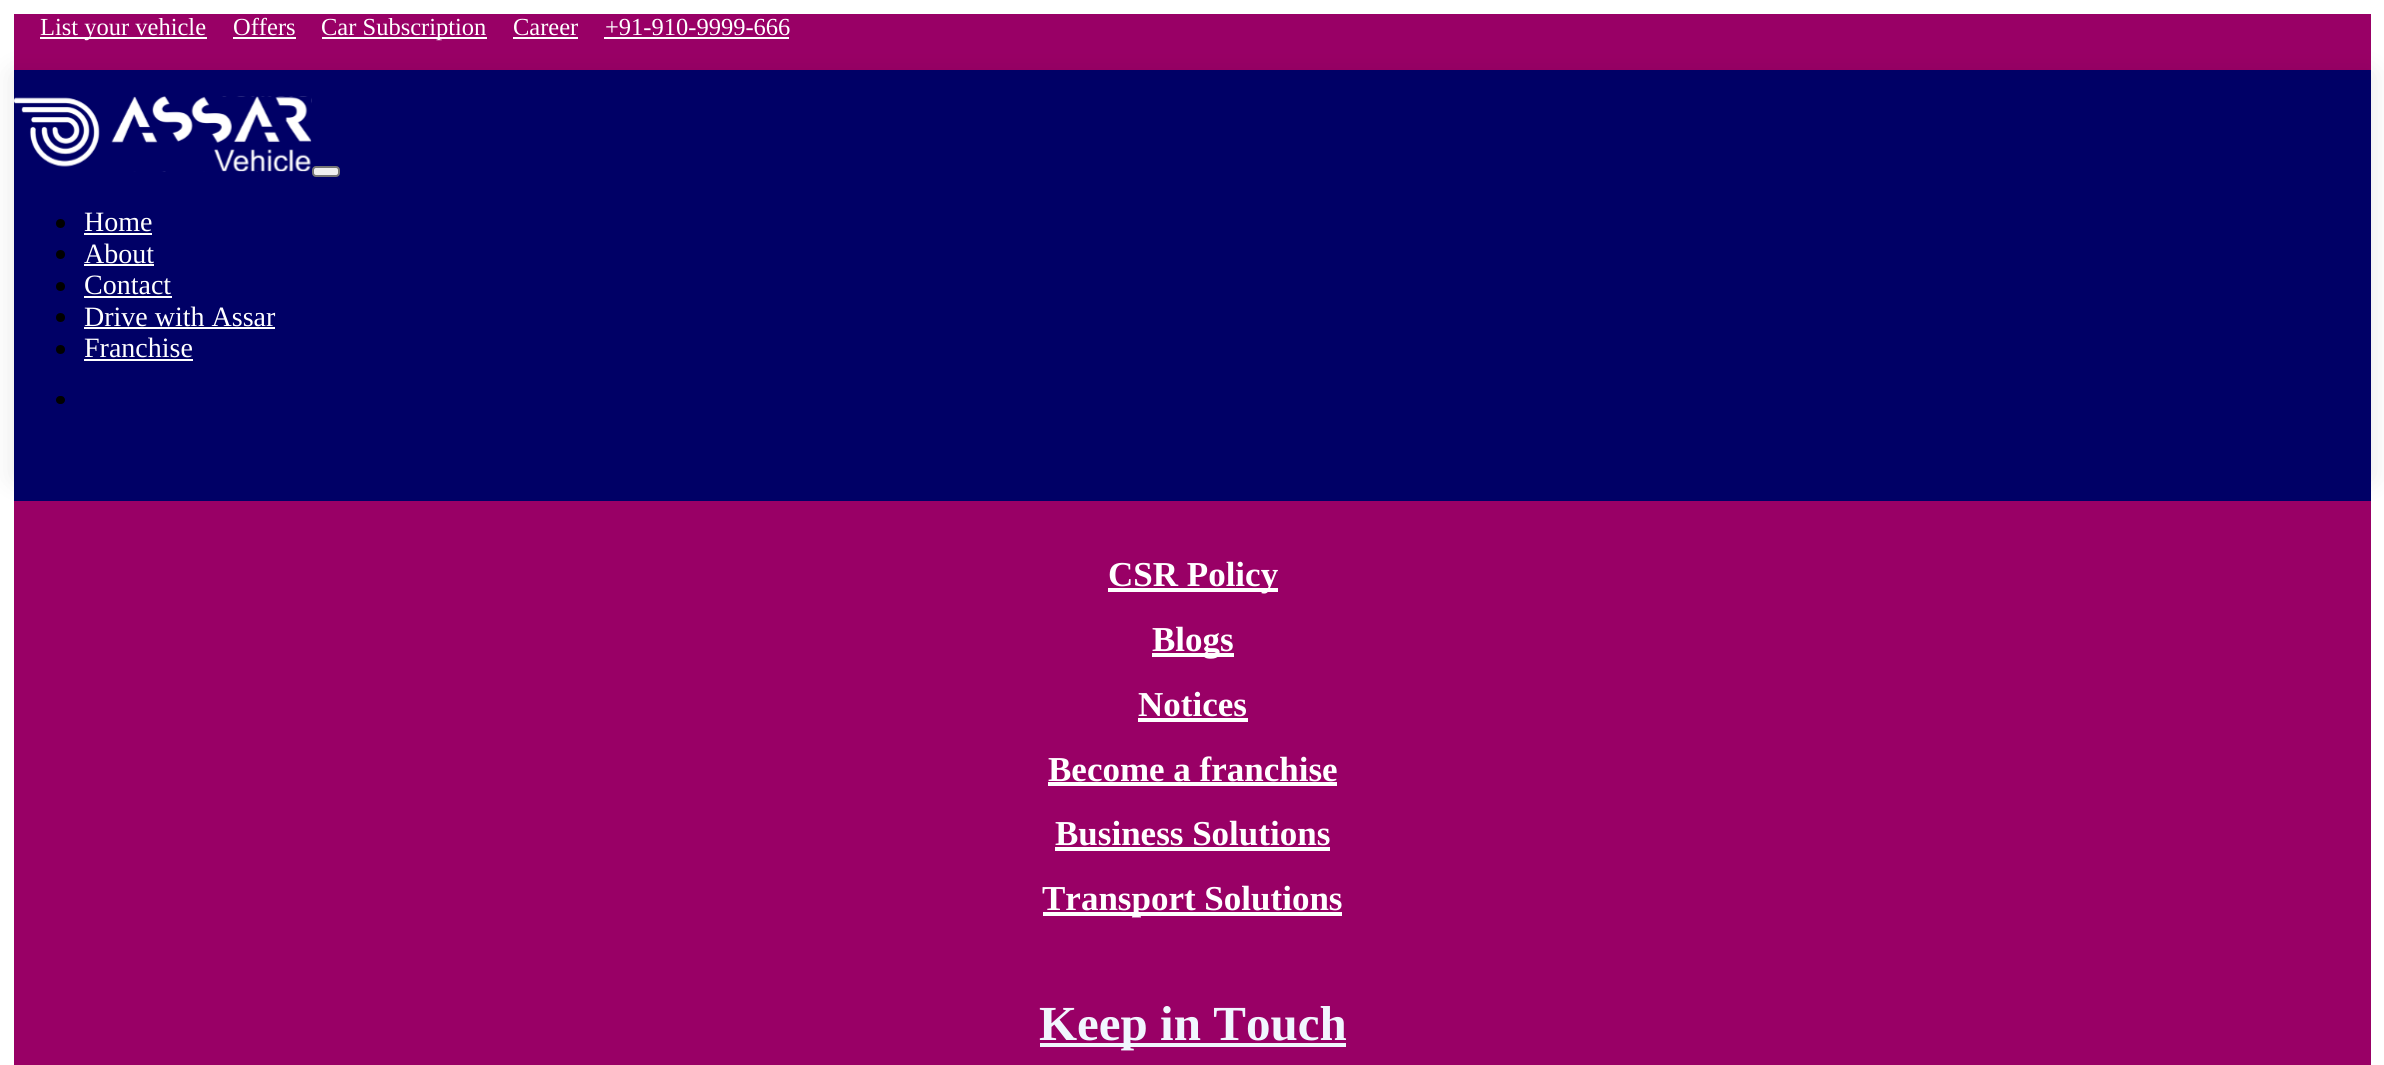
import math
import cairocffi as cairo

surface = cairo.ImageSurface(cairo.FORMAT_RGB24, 2384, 1065)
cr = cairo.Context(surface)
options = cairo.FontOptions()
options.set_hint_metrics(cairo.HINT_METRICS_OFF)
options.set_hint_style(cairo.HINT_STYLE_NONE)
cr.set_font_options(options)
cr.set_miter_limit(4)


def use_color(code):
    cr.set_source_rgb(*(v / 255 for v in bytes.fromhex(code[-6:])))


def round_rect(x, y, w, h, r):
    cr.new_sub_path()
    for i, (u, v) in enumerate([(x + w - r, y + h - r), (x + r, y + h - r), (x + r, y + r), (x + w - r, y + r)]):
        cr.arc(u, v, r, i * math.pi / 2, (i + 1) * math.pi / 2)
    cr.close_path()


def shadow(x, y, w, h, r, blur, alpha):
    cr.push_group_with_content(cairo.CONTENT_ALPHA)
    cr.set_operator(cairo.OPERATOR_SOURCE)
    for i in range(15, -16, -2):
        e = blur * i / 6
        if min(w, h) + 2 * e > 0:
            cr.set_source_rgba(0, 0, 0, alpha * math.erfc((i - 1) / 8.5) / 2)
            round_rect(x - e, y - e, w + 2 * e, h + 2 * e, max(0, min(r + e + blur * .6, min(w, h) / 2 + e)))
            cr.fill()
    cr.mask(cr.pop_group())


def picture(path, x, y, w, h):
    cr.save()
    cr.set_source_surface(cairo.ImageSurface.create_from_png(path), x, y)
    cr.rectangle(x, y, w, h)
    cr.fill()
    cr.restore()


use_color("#ffffff")
cr.paint()
use_color("#990066")
cr.rectangle(14, 14, 2357, 56)
cr.fill()
use_color("#000000")
shadow(14, 74, 2357, 404, 0, 13, 0.1)
use_color("#ffffff")
cr.rectangle(40, 37, 167, 2)
cr.fill()
cr.select_font_face("Liberation Serif")
cr.set_font_size(24.5)
cr.move_to(40, 35)
cr.show_text("List your vehicle")
cr.move_to(233, 35)
cr.show_text("Offers")
cr.rectangle(233, 37, 63, 2)
cr.fill()
cr.rectangle(322, 37, 165, 2)
cr.fill()
cr.move_to(321, 35)
cr.show_text("Car Subscription")
cr.move_to(513, 35)
cr.show_text("Career")
cr.rectangle(513, 37, 65, 2)
cr.fill()
cr.move_to(605, 35)
cr.show_text("+91-910-9999-666")
cr.rectangle(604, 37, 185, 2)
cr.fill()
use_color("#000066")
cr.rectangle(14, 70, 2357, 431)
cr.fill()
picture("img1.png", 14, 96, 298, 76)
use_color("#efefef")
round_rect(313, 167, 26, 9, 3)
cr.fill_preserve()
use_color("#767676")
cr.stroke()
use_color("#000000")
cr.arc(60.5, 223.5, 4.5, 0, 2 * math.pi)
cr.fill()
cr.set_font_size(28)
use_color("#ffffff")
cr.move_to(84, 231)
cr.show_text("Home")
cr.rectangle(84, 233, 68, 2)
cr.fill()
use_color("#000000")
cr.arc(60.5, 254.5, 4.5, 0, 2 * math.pi)
cr.fill()
use_color("#ffffff")
cr.move_to(84, 263)
cr.show_text("About")
cr.rectangle(84, 264, 70, 2)
cr.fill()
use_color("#000000")
cr.arc(60.5, 286.5, 4.5, 0, 2 * math.pi)
cr.fill()
use_color("#ffffff")
cr.move_to(84, 294)
cr.show_text("Contact")
cr.rectangle(84, 296, 88, 2)
cr.fill()
use_color("#000000")
cr.arc(60.5, 317.5, 4.5, 0, 2 * math.pi)
cr.fill()
use_color("#ffffff")
cr.move_to(84, 326)
cr.show_text("Drive with Assar")
cr.rectangle(84, 327, 191, 2)
cr.fill()
use_color("#000000")
cr.arc(60.5, 349.5, 4.5, 0, 2 * math.pi)
cr.fill()
use_color("#ffffff")
cr.move_to(84, 357)
cr.show_text("Franchise")
cr.rectangle(84, 359, 109, 2)
cr.fill()
use_color("#000000")
round_rect(56, 396, 9, 8, 4)
cr.fill()
use_color("#990066")
cr.rectangle(14, 501, 2357, 564)
cr.fill()
use_color("#ffffff")
cr.rectangle(1108, 588, 170, 4)
cr.fill()
cr.select_font_face("Liberation Serif", cairo.FONT_SLANT_NORMAL, cairo.FONT_WEIGHT_BOLD)
cr.set_font_size(35)
cr.move_to(1108, 586)
cr.show_text("CSR Policy")
cr.rectangle(1152, 653, 82, 4)
cr.fill()
cr.move_to(1152, 651)
cr.show_text("Blogs")
cr.move_to(1138, 716)
cr.show_text("Notices")
cr.rectangle(1138, 718, 110, 4)
cr.fill()
cr.move_to(1048, 781)
cr.show_text("Become a franchise")
cr.rectangle(1048, 782, 289, 4)
cr.fill()
cr.move_to(1055, 845)
cr.show_text("Business Solutions")
cr.rectangle(1055, 847, 275, 4)
cr.fill()
cr.rectangle(1043, 912, 299, 4)
cr.fill()
cr.move_to(1042, 910)
cr.show_text("Transport Solutions")
use_color("#f1f6fe")
cr.rectangle(1040, 1043, 306, 4)
cr.fill()
cr.set_font_size(49)
cr.move_to(1039, 1040)
cr.show_text("Keep in Touch")
surface.write_to_png("result.png")
